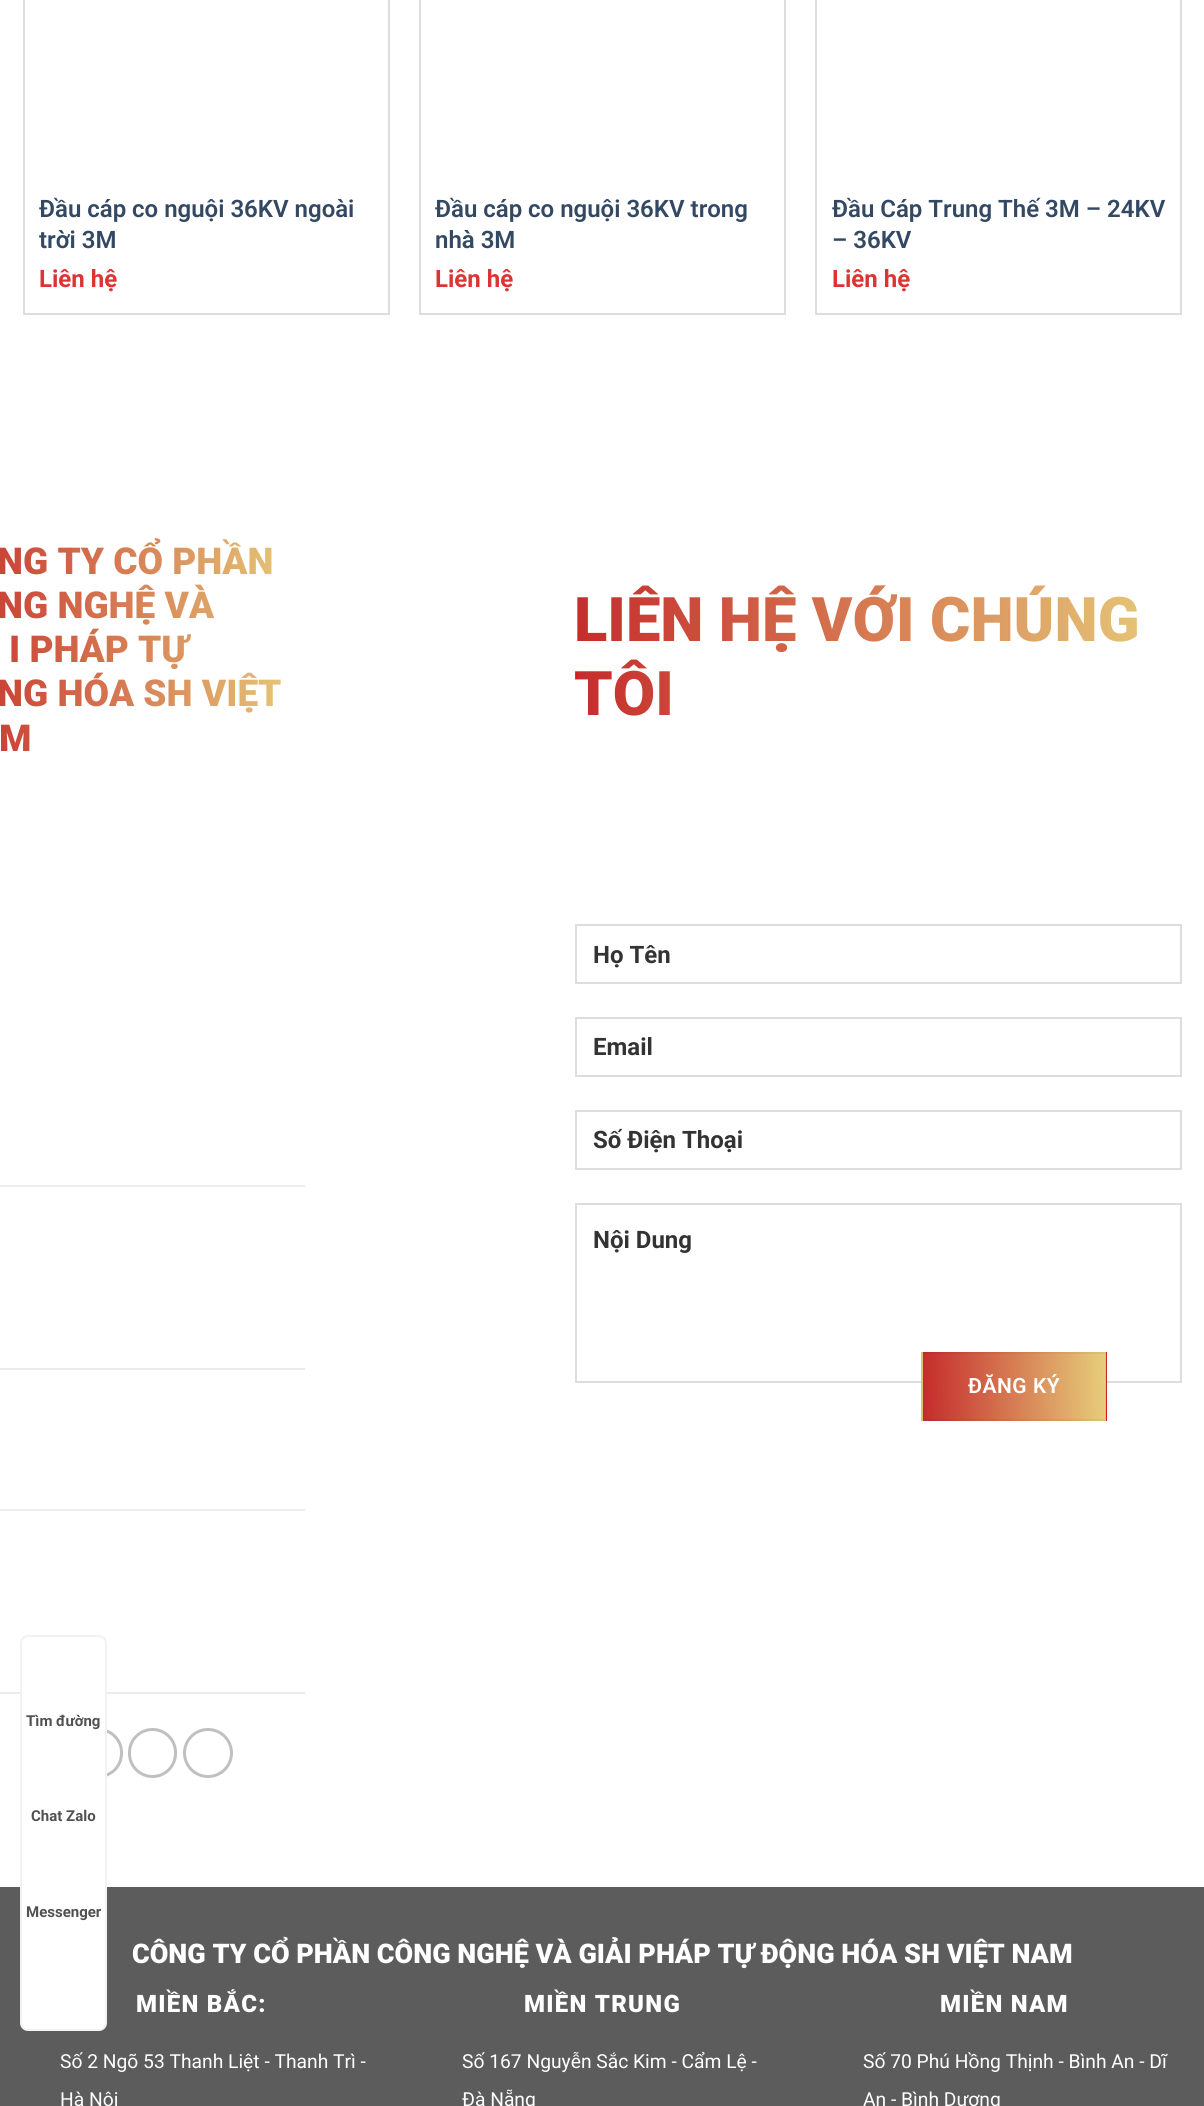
import math
import cairocffi as cairo

surface = cairo.ImageSurface(cairo.FORMAT_RGB24, 1204, 2106)
cr = cairo.Context(surface)
options = cairo.FontOptions()
options.set_hint_metrics(cairo.HINT_METRICS_OFF)
options.set_hint_style(cairo.HINT_STYLE_NONE)
cr.set_font_options(options)
cr.set_miter_limit(4)


def use_color(code):
    cr.set_source_rgb(*(v / 255 for v in bytes.fromhex(code[-6:])))


def spaced_text(x, y, s, letter, word):
    cr.move_to(x, y)
    for ch in s:
        cr.show_text(ch)
        cr.rel_move_to(letter + word * (ch == ' '), 0)


def round_rect(x, y, w, h, r):
    cr.new_sub_path()
    for i, (u, v) in enumerate([(x + w - r, y + h - r), (x + r, y + h - r), (x + r, y + r), (x + w - r, y + r)]):
        cr.arc(u, v, r, i * math.pi / 2, (i + 1) * math.pi / 2)
    cr.close_path()


use_color("#ffffff")
cr.paint()
cr.rectangle(24, -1, 365, 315)
use_color("#dddddd")
cr.stroke()
cr.select_font_face("Roboto SemiBold")
cr.set_font_size(24)
use_color("#334862")
cr.move_to(39, 217)
cr.show_text("Đầu cáp co nguội 36KV ngoài")
cr.move_to(39, 248)
cr.show_text("trời 3M")
cr.select_font_face("Roboto", cairo.FONT_SLANT_NORMAL, cairo.FONT_WEIGHT_BOLD)
use_color("#dd3333")
cr.move_to(39, 287)
cr.show_text("Liên hệ")
cr.rectangle(420, -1, 365, 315)
use_color("#dddddd")
cr.stroke()
cr.select_font_face("Roboto SemiBold")
use_color("#334862")
cr.move_to(435, 217)
cr.show_text("Đầu cáp co nguội 36KV trong")
cr.move_to(435, 248)
cr.show_text("nhà 3M")
cr.select_font_face("Roboto", cairo.FONT_SLANT_NORMAL, cairo.FONT_WEIGHT_BOLD)
use_color("#dd3333")
cr.move_to(435, 287)
cr.show_text("Liên hệ")
cr.rectangle(816, -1, 365, 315)
use_color("#dddddd")
cr.stroke()
cr.select_font_face("Roboto SemiBold")
use_color("#334862")
cr.move_to(832, 217)
cr.show_text("Đầu Cáp Trung Thế 3M – 24KV")
cr.move_to(832, 248)
cr.show_text("– 36KV")
cr.select_font_face("Roboto", cairo.FONT_SLANT_NORMAL, cairo.FONT_WEIGHT_BOLD)
use_color("#dd3333")
cr.move_to(832, 287)
cr.show_text("Liên hệ")
cr.select_font_face("Roboto Black")
cr.set_font_size(37)
gradient = cairo.LinearGradient(-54, 657, 306, 651)
gradient.add_color_stop_rgba(0, 1, 0, 0, 1)
gradient.add_color_stop_rgba(0.01, 0.776, 0.176, 0.176, 1)
gradient.add_color_stop_rgba(1, 0.906, 0.808, 0.482, 1)
cr.set_source(gradient)
cr.move_to(-3, 574)
cr.show_text("NG TY CỔ PHẦN")
cr.move_to(-3, 618)
cr.show_text("NG NGHỆ VÀ")
cr.move_to(9, 662)
cr.show_text("I PHÁP TỰ")
cr.move_to(-3, 706)
cr.show_text("NG HÓA SH VIỆT")
cr.move_to(-1, 751)
cr.show_text("M")
use_color("#ececec")
cr.rectangle(0, 1185, 305, 2)
cr.fill()
cr.rectangle(0, 1368, 305, 2)
cr.fill()
cr.rectangle(0, 1509, 305, 2)
cr.fill()
cr.rectangle(0, 1692, 305, 2)
cr.fill()
round_rect(75.5, 1729.5, 46, 47, 23)
use_color("#c0c0c0")
cr.set_line_width(3)
cr.stroke()
round_rect(129.5, 1729.5, 46, 47, 23)
cr.stroke()
cr.arc(208, 1753, 23.5, 0, 2 * math.pi)
cr.stroke()
cr.set_font_size(61.5)
gradient = cairo.LinearGradient(573, 667, 1183, 657)
gradient.add_color_stop_rgba(0, 1, 0, 0, 1)
gradient.add_color_stop_rgba(0.01, 0.776, 0.176, 0.176, 1)
gradient.add_color_stop_rgba(1, 0.906, 0.808, 0.482, 1)
cr.set_source(gradient)
cr.move_to(574, 641)
cr.show_text("LIÊN HỆ VỚI CHÚNG")
cr.move_to(574, 715)
cr.show_text("TÔI")
cr.rectangle(576, 925, 605, 58)
use_color("#dddddd")
cr.set_line_width(2)
cr.stroke()
cr.select_font_face("Roboto", cairo.FONT_SLANT_NORMAL, cairo.FONT_WEIGHT_BOLD)
cr.set_font_size(24)
use_color("#333333")
cr.move_to(593, 963)
cr.show_text("Họ Tên")
cr.rectangle(576, 1018, 605, 58)
use_color("#dddddd")
cr.stroke()
use_color("#333333")
cr.move_to(593, 1055)
cr.show_text("Email")
cr.rectangle(576, 1111, 605, 58)
use_color("#dddddd")
cr.stroke()
use_color("#333333")
cr.move_to(593, 1148)
cr.show_text("Số Điện Thoại")
cr.rectangle(576, 1204, 605, 178)
use_color("#dddddd")
cr.stroke()
use_color("#333333")
cr.move_to(593, 1248)
cr.show_text("Nội Dung")
gradient = cairo.LinearGradient(739, 1322, 923, 1318)
gradient.add_color_stop_rgba(0, 1, 0, 0, 1)
gradient.add_color_stop_rgba(0.01, 0.776, 0.176, 0.176, 1)
gradient.add_color_stop_rgba(1, 0.906, 0.808, 0.482, 1)
cr.set_source(gradient)
cr.rectangle(921, 1352, 2, 1)
cr.fill()
gradient = cairo.LinearGradient(922, 1322, 1106, 1318)
gradient.add_color_stop_rgba(0, 1, 0, 0, 1)
gradient.add_color_stop_rgba(0.01, 0.776, 0.176, 0.176, 1)
gradient.add_color_stop_rgba(1, 0.906, 0.808, 0.482, 1)
cr.set_source(gradient)
cr.rectangle(923, 1352, 183, 1)
cr.fill()
gradient = cairo.LinearGradient(1105, 1322, 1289, 1318)
gradient.add_color_stop_rgba(0, 1, 0, 0, 1)
gradient.add_color_stop_rgba(0.01, 0.776, 0.176, 0.176, 1)
gradient.add_color_stop_rgba(1, 0.906, 0.808, 0.482, 1)
cr.set_source(gradient)
cr.rectangle(1106, 1352, 1, 1)
cr.fill()
gradient = cairo.LinearGradient(739, 1388, 923, 1384)
gradient.add_color_stop_rgba(0, 1, 0, 0, 1)
gradient.add_color_stop_rgba(0.01, 0.776, 0.176, 0.176, 1)
gradient.add_color_stop_rgba(1, 0.906, 0.808, 0.482, 1)
cr.set_source(gradient)
cr.rectangle(921, 1353, 2, 66)
cr.fill()
gradient = cairo.LinearGradient(922, 1388, 1106, 1384)
gradient.add_color_stop_rgba(0, 1, 0, 0, 1)
gradient.add_color_stop_rgba(0.01, 0.776, 0.176, 0.176, 1)
gradient.add_color_stop_rgba(1, 0.906, 0.808, 0.482, 1)
cr.set_source(gradient)
cr.rectangle(923, 1353, 183, 66)
cr.fill()
gradient = cairo.LinearGradient(1105, 1388, 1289, 1384)
gradient.add_color_stop_rgba(0, 1, 0, 0, 1)
gradient.add_color_stop_rgba(0.01, 0.776, 0.176, 0.176, 1)
gradient.add_color_stop_rgba(1, 0.906, 0.808, 0.482, 1)
cr.set_source(gradient)
cr.rectangle(1106, 1353, 1, 66)
cr.fill()
gradient = cairo.LinearGradient(739, 1454, 923, 1450)
gradient.add_color_stop_rgba(0, 1, 0, 0, 1)
gradient.add_color_stop_rgba(0.01, 0.776, 0.176, 0.176, 1)
gradient.add_color_stop_rgba(1, 0.906, 0.808, 0.482, 1)
cr.set_source(gradient)
cr.rectangle(921, 1419, 2, 2)
cr.fill()
gradient = cairo.LinearGradient(922, 1454, 1106, 1450)
gradient.add_color_stop_rgba(0, 1, 0, 0, 1)
gradient.add_color_stop_rgba(0.01, 0.776, 0.176, 0.176, 1)
gradient.add_color_stop_rgba(1, 0.906, 0.808, 0.482, 1)
cr.set_source(gradient)
cr.rectangle(923, 1419, 183, 2)
cr.fill()
gradient = cairo.LinearGradient(1105, 1454, 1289, 1450)
gradient.add_color_stop_rgba(0, 1, 0, 0, 1)
gradient.add_color_stop_rgba(0.01, 0.776, 0.176, 0.176, 1)
gradient.add_color_stop_rgba(1, 0.906, 0.808, 0.482, 1)
cr.set_source(gradient)
cr.rectangle(1106, 1419, 1, 2)
cr.fill()
cr.rectangle(922, 1353, 184, 67)
cr.set_source_rgba(0, 0, 0, 0.05)
cr.stroke()
cr.select_font_face("Roboto SemiBold")
cr.set_font_size(21)
use_color("#ffffff")
spaced_text(968, 1393, "ĐĂNG KÝ", 0.5, 0)
use_color("#5c5c5c")
cr.rectangle(0, 1887, 1204, 219)
cr.fill()
cr.select_font_face("Roboto Black")
cr.set_font_size(27)
use_color("#ffffff")
cr.move_to(132, 1963)
cr.show_text("CÔNG TY CỔ PHẦN CÔNG NGHỆ VÀ GIẢI PHÁP TỰ ĐỘNG HÓA SH VIỆT NAM")
cr.set_font_size(24)
spaced_text(136, 2012, "MIỀN BẮC:", 1.25, 0)
cr.select_font_face("Roboto")
cr.set_font_size(19.25)
cr.move_to(60, 2068)
cr.show_text("Số 2 Ngõ 53 Thanh Liệt - Thanh Trì -")
cr.move_to(60, 2106)
cr.show_text("Hà Nội")
cr.select_font_face("Roboto Black")
cr.set_font_size(24)
spaced_text(524, 2012, "MIỀN TRUNG", 1.25, 0)
cr.select_font_face("Roboto")
cr.set_font_size(19.25)
cr.move_to(462, 2068)
cr.show_text("Số 167 Nguyễn Sắc Kim - Cẩm Lệ -")
cr.move_to(462, 2106)
cr.show_text("Đà Nẵng")
cr.select_font_face("Roboto Black")
cr.set_font_size(24)
spaced_text(940, 2012, "MIỀN NAM", 1.25, 0)
cr.select_font_face("Roboto")
cr.set_font_size(19.25)
cr.move_to(863, 2068)
cr.show_text("Số 70 Phú Hồng Thịnh - Bình An - Dĩ")
cr.move_to(863, 2106)
cr.show_text("An - Bình Dương")
round_rect(21, 1636, 85, 394, 7)
cr.fill_preserve()
use_color("#f2f2f2")
cr.stroke()
cr.select_font_face("Roboto", cairo.FONT_SLANT_NORMAL, cairo.FONT_WEIGHT_BOLD)
cr.set_font_size(15)
use_color("#515151")
cr.move_to(26, 1726)
cr.show_text("Tìm đường")
cr.move_to(31, 1821)
cr.show_text("Chat Zalo")
cr.move_to(26, 1917)
cr.show_text("Messenger")
surface.write_to_png("result.png")
